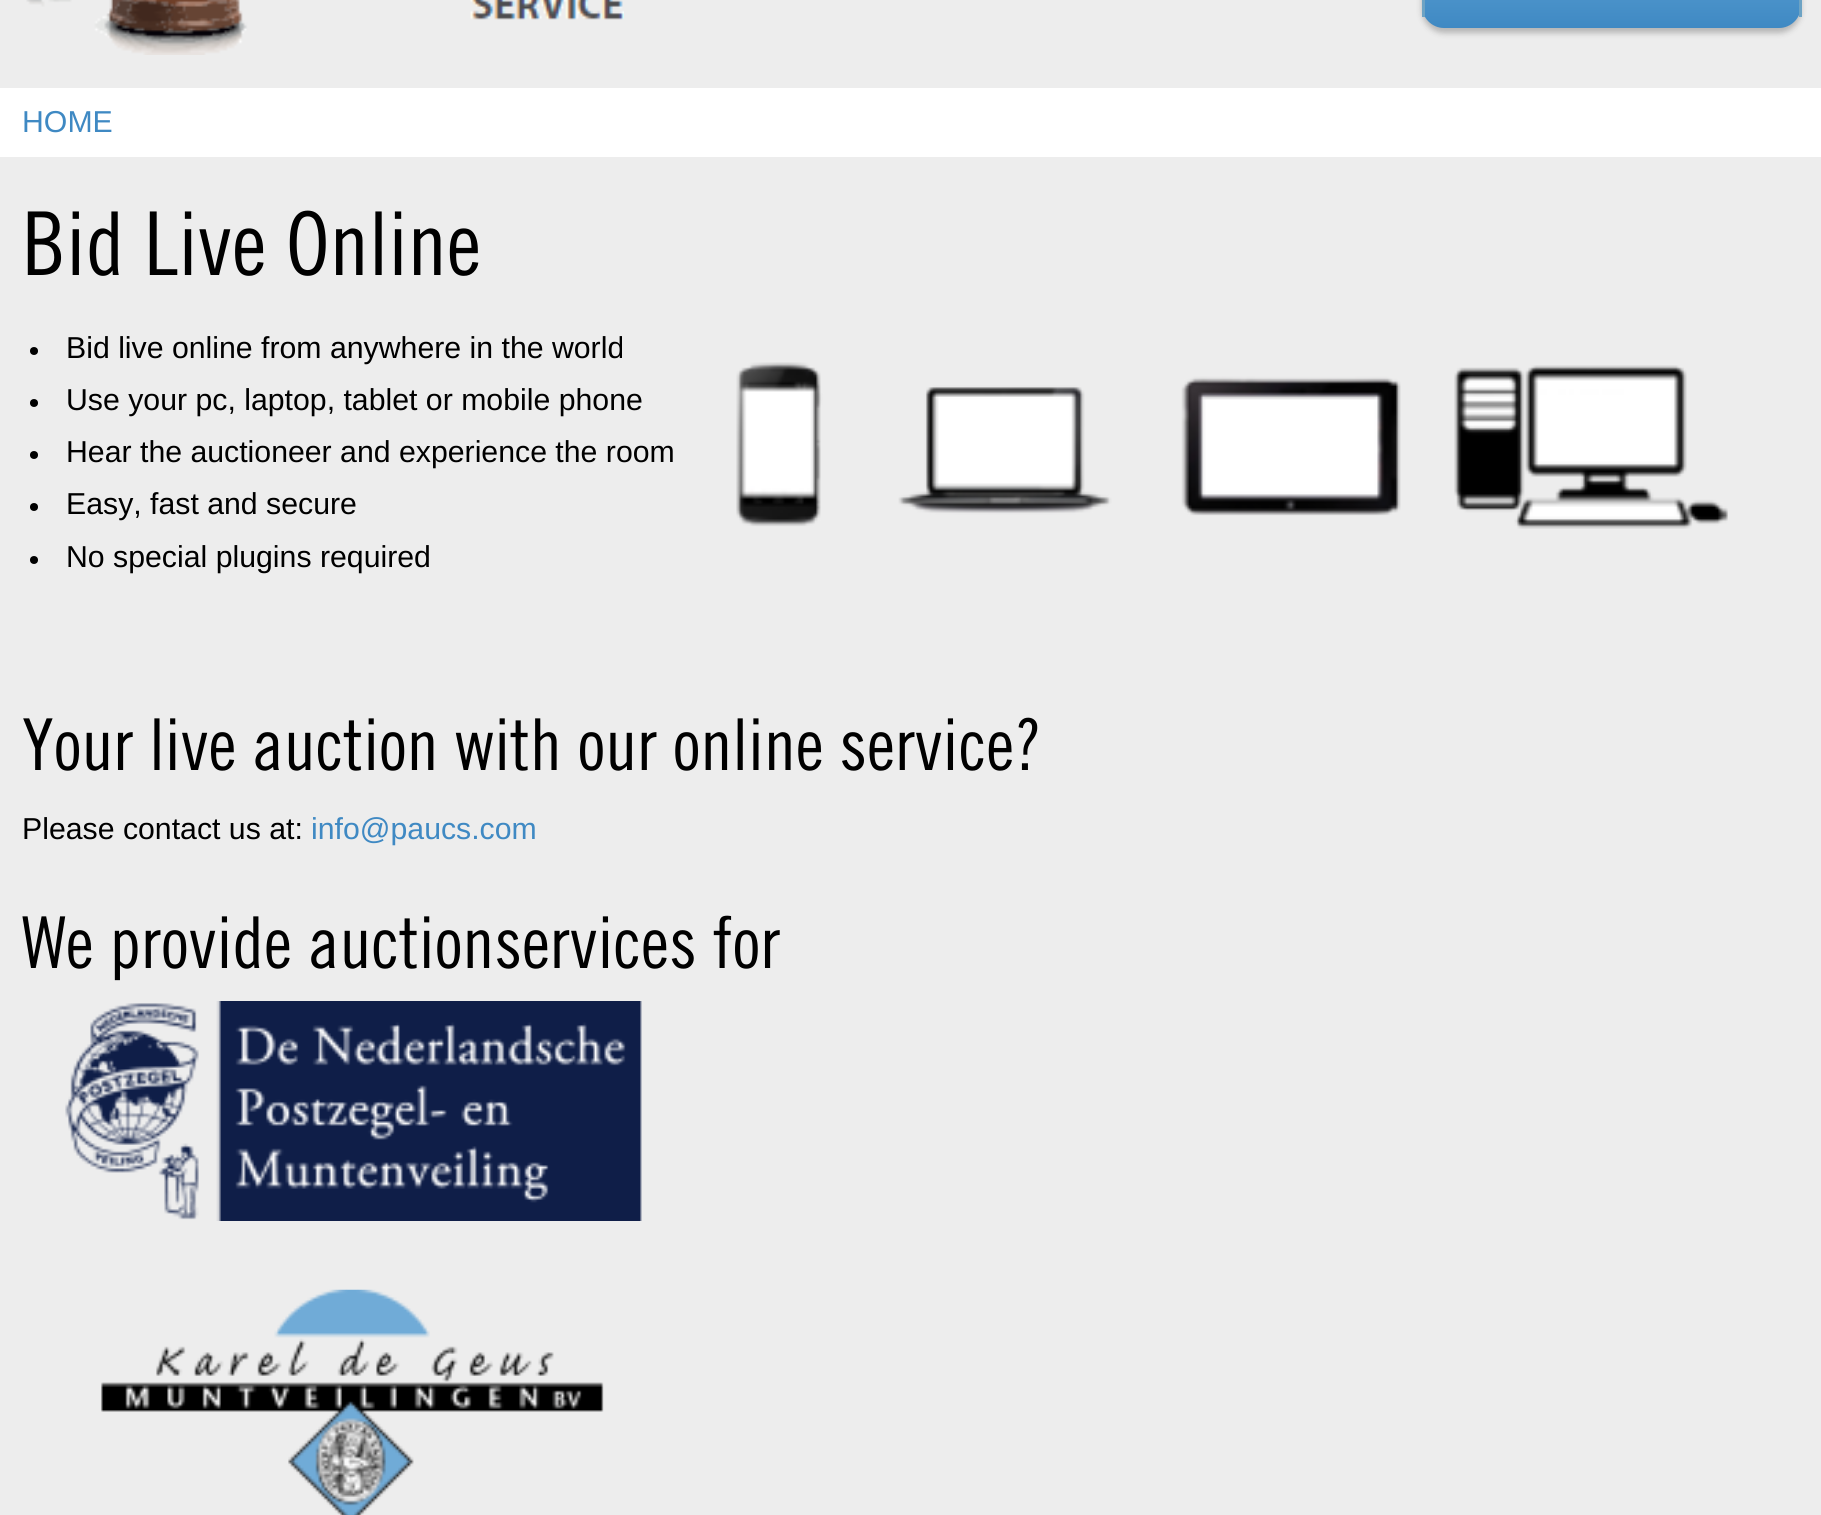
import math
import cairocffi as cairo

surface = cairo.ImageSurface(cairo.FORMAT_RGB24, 1821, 1515)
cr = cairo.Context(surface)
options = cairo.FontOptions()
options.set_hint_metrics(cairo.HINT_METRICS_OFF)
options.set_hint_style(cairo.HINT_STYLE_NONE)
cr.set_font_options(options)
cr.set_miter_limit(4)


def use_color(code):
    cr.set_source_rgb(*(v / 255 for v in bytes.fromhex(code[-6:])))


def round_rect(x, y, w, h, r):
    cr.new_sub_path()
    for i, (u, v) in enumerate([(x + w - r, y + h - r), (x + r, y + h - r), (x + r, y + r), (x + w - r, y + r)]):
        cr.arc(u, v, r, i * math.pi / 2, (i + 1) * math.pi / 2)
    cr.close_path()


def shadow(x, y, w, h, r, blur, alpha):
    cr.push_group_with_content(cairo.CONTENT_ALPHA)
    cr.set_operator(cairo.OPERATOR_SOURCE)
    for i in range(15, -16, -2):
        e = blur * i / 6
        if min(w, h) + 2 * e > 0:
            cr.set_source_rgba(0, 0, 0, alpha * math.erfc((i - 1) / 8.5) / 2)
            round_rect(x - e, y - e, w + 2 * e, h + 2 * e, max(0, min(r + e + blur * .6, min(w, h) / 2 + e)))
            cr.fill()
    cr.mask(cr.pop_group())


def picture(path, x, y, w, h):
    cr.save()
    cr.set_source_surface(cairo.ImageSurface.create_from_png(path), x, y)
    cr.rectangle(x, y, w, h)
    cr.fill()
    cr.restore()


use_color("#ededed")
cr.paint()
picture("img1.png", 26, 0, 598, 55)
use_color("#323232")
shadow(1422, -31, 379, 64, 22, 3, 0.3)
gradient = cairo.LinearGradient(1425, -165, 1425, 28)
gradient.add_color_stop_rgba(0.05, 0.514, 0.757, 0.918, 1)
gradient.add_color_stop_rgba(1, 0.247, 0.537, 0.765, 1)
cr.set_source(gradient)
cr.new_path()
cr.move_to(1422, -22)
cr.line_to(1801, -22)
cr.line_to(1801, 6)
cr.curve_to(1801, 18, 1791, 28, 1779, 28)
cr.line_to(1444, 28)
cr.curve_to(1432, 28, 1422, 18, 1422, 6)
cr.close_path()
cr.fill()
use_color("#6da3c4")
cr.rectangle(1799, 0, 3, 17)
cr.fill()
cr.rectangle(1422, 0, 3, 17)
cr.fill()
use_color("#ffffff")
cr.rectangle(0, 88, 1821, 69)
cr.fill()
cr.select_font_face("Liberation Sans")
cr.set_font_size(30.25)
use_color("#3f89c3")
cr.move_to(22, 132)
cr.show_text("HOME")
cr.select_font_face("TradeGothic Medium")
cr.set_font_size(88)
use_color("#000000")
cr.move_to(22, 275)
cr.show_text("Bid Live Online")
cr.new_path()
cr.arc(34, 351, 4, 0, 2 * math.pi)
cr.fill()
cr.select_font_face("Liberation Sans")
cr.set_font_size(30.25)
cr.move_to(66, 358)
cr.show_text("Bid live online from anywhere in the world")
picture("img2.png", 736, 362, 992, 167)
cr.arc(34, 403, 4, 0, 2 * math.pi)
cr.fill()
cr.move_to(66, 410)
cr.show_text("Use your pc, laptop, tablet or mobile phone")
cr.new_path()
cr.arc(34, 455, 4, 0, 2 * math.pi)
cr.fill()
cr.move_to(66, 462)
cr.show_text("Hear the auctioneer and experience the room")
cr.new_path()
cr.arc(34, 507, 4, 0, 2 * math.pi)
cr.fill()
cr.move_to(66, 514)
cr.show_text("Easy, fast and secure")
cr.new_path()
cr.arc(34, 560, 4, 0, 2 * math.pi)
cr.fill()
cr.move_to(66, 567)
cr.show_text("No special plugins required")
cr.select_font_face("TradeGothic Medium")
cr.set_font_size(71.5)
cr.move_to(22, 770)
cr.show_text("Your live auction with our online service?")
cr.select_font_face("Liberation Sans")
cr.set_font_size(30.25)
cr.move_to(22, 839)
cr.show_text("Please contact us at:")
use_color("#3f89c3")
cr.move_to(311, 839)
cr.show_text("info@paucs.com")
cr.select_font_face("TradeGothic Medium")
cr.set_font_size(71.5)
use_color("#000000")
cr.move_to(22, 968)
cr.show_text("We provide auctionservices for")
picture("img3.png", 65, 1001, 577, 220)
picture("img4.png", 101, 1289, 503, 226)
surface.write_to_png("result.png")
